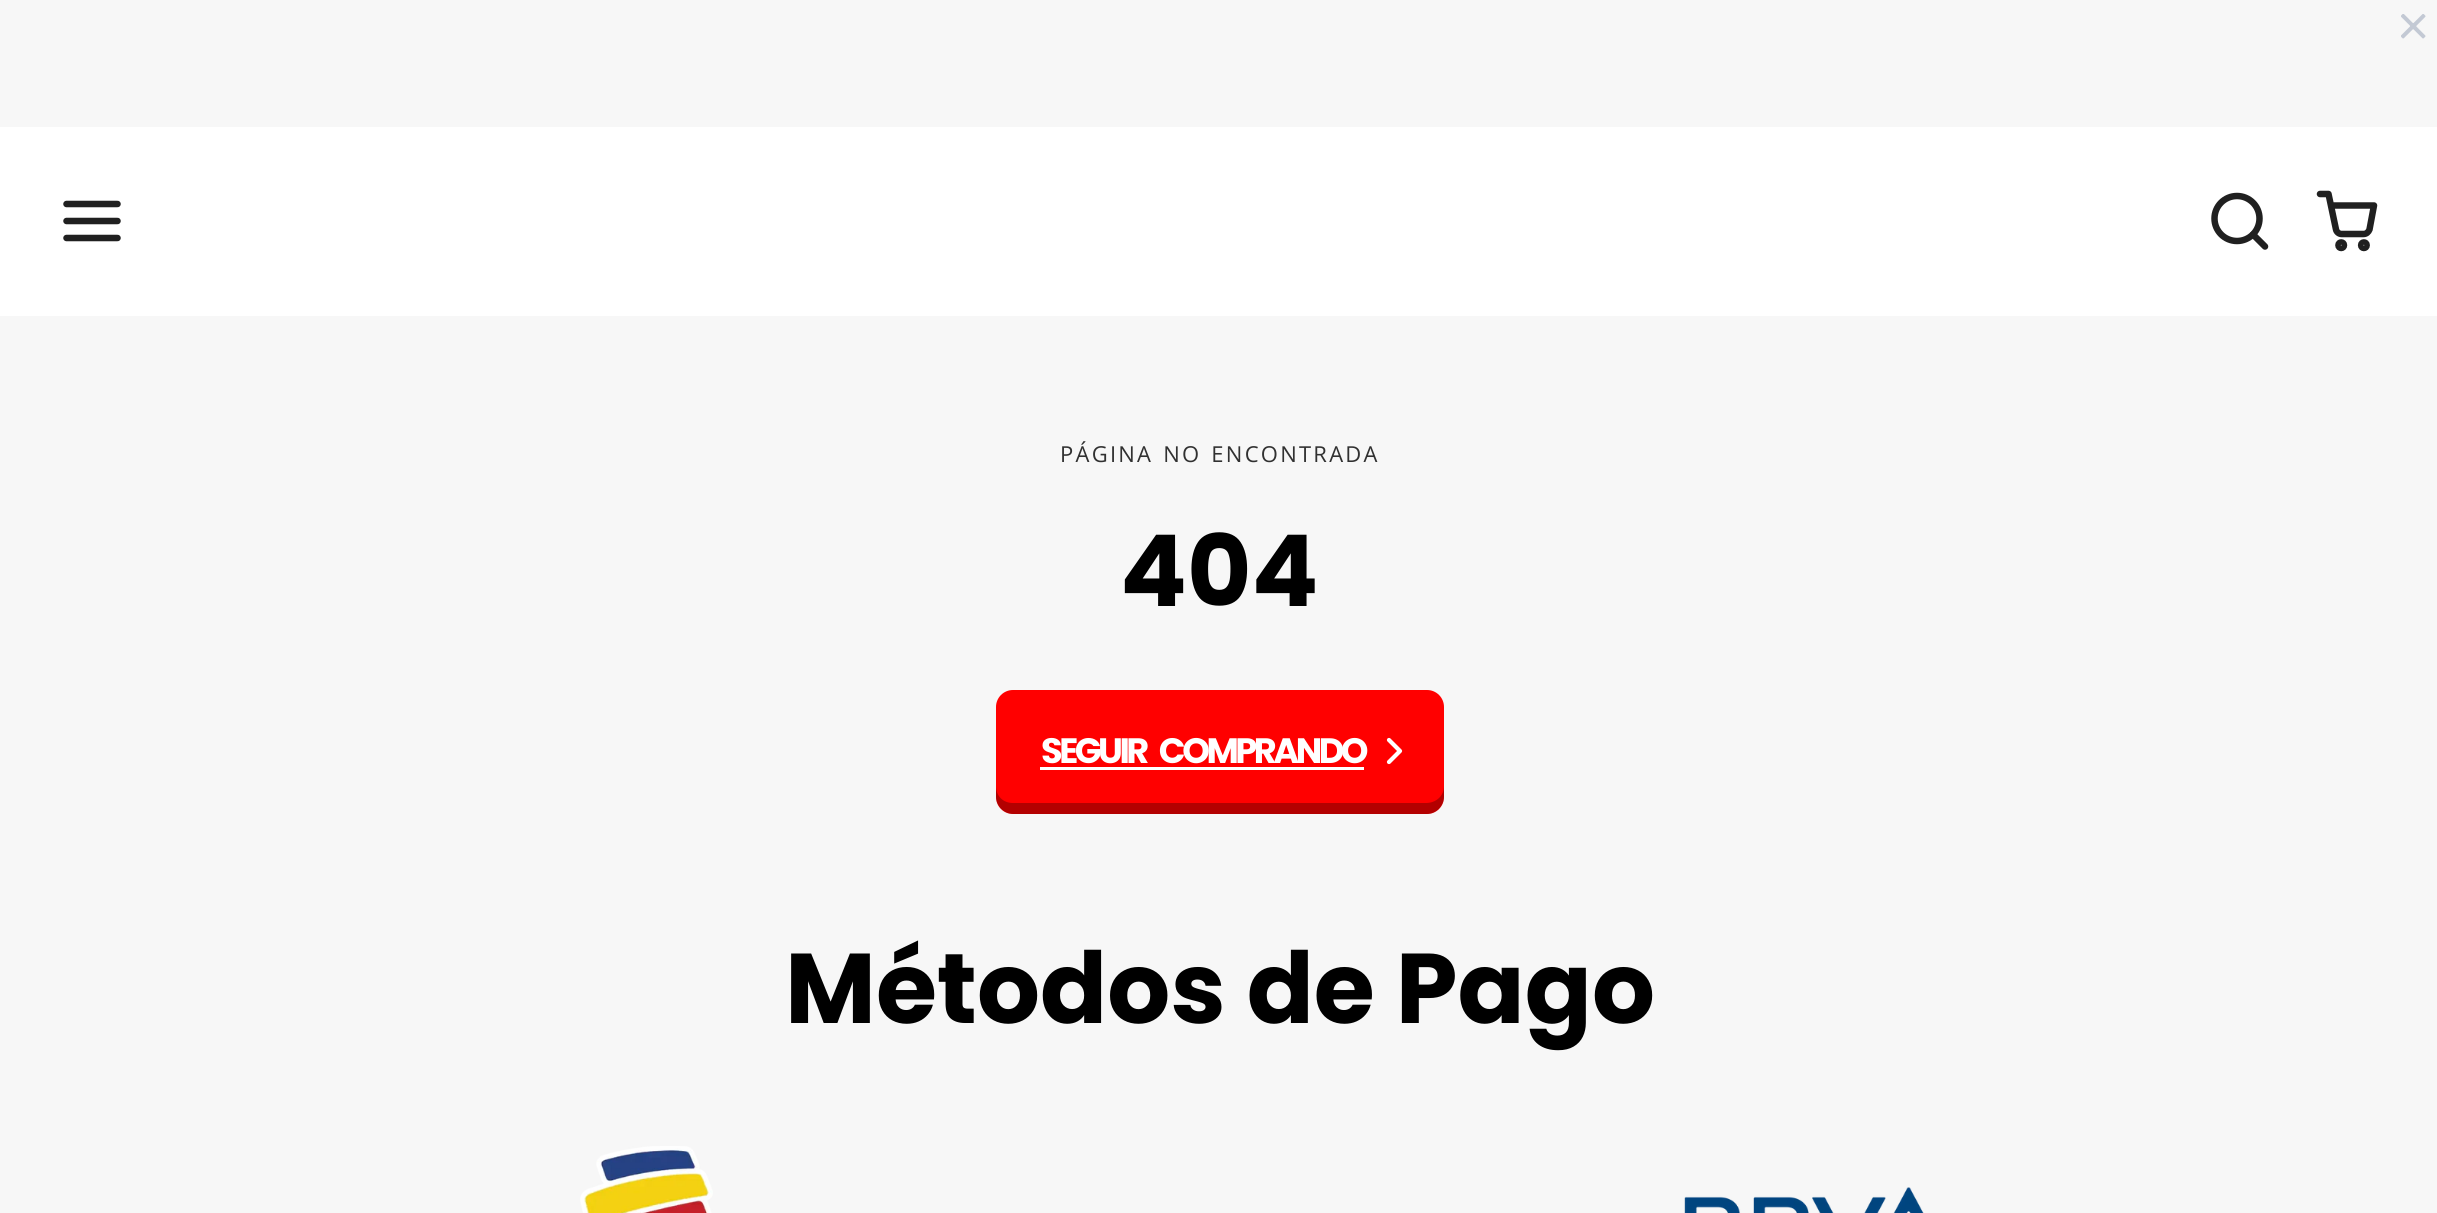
import math
import cairocffi as cairo

surface = cairo.ImageSurface(cairo.FORMAT_RGB24, 2437, 1213)
cr = cairo.Context(surface)
options = cairo.FontOptions()
options.set_hint_metrics(cairo.HINT_METRICS_OFF)
options.set_hint_style(cairo.HINT_STYLE_NONE)
cr.set_font_options(options)
cr.set_miter_limit(4)


def use_color(code):
    cr.set_source_rgb(*(v / 255 for v in bytes.fromhex(code[-6:])))


def spaced_text(x, y, s, letter, word):
    cr.move_to(x, y)
    for ch in s:
        cr.show_text(ch)
        cr.rel_move_to(letter + word * (ch == ' '), 0)


def round_rect(x, y, w, h, r):
    cr.new_sub_path()
    for i, (u, v) in enumerate([(x + w - r, y + h - r), (x + r, y + h - r), (x + r, y + r), (x + w - r, y + r)]):
        cr.arc(u, v, r, i * math.pi / 2, (i + 1) * math.pi / 2)
    cr.close_path()


def picture(path, x, y, w, h):
    cr.save()
    cr.set_source_surface(cairo.ImageSurface.create_from_png(path), x, y)
    cr.rectangle(x, y, w, h)
    cr.fill()
    cr.restore()


use_color("#f7f7f7")
cr.paint()
picture("img1.png", 2401, 14, 25, 25)
use_color("#ffffff")
cr.rectangle(0, 127, 2437, 189)
cr.fill()
cr.new_path()
cr.move_to(66.5, 221)
cr.line_to(117.5, 221)
cr.move_to(66.5, 204)
cr.line_to(117.5, 204)
cr.move_to(66.5, 238)
cr.line_to(117.5, 238)
use_color("#202020")
cr.set_line_width(6.5)
cr.set_line_cap(cairo.LINE_CAP_ROUND)
cr.set_line_join(cairo.LINE_JOIN_ROUND)
cr.stroke()
cr.arc(2237, 218.5, 22.5, 0, 2 * math.pi)
cr.set_line_cap(cairo.LINE_CAP_BUTT)
cr.set_line_join(cairo.LINE_JOIN_MITER)
cr.stroke()
cr.new_path()
cr.move_to(2265, 246.5)
cr.line_to(2253, 234.5)
cr.set_line_cap(cairo.LINE_CAP_ROUND)
cr.set_line_join(cairo.LINE_JOIN_ROUND)
cr.stroke()
cr.arc(2341.2, 245.2, 2.8, 0, 2 * math.pi)
cr.set_line_cap(cairo.LINE_CAP_BUTT)
cr.set_line_join(cairo.LINE_JOIN_MITER)
cr.stroke()
cr.arc(2363.9, 245.2, 2.8, 0, 2 * math.pi)
cr.stroke()
cr.new_path()
cr.move_to(2320, 194)
cr.line_to(2328.5, 194)
cr.line_to(2336, 229.5)
cr.curve_to(2336.5, 232, 2339, 234, 2341.5, 234)
cr.line_to(2363.5, 234)
cr.curve_to(2366.5, 234, 2368.5, 232, 2369.5, 229.5)
cr.line_to(2374, 205.5)
cr.line_to(2333, 205.5)
cr.set_line_cap(cairo.LINE_CAP_ROUND)
cr.set_line_join(cairo.LINE_JOIN_ROUND)
cr.stroke()
cr.select_font_face("Open Sans")
cr.set_font_size(22)
use_color("#313131")
spaced_text(1060, 462, "PÁGINA NO ENCONTRADA", 2.25, 2)
cr.select_font_face("Poppins", cairo.FONT_SLANT_NORMAL, cairo.FONT_WEIGHT_BOLD)
cr.set_font_size(99)
use_color("#000000")
cr.move_to(1120, 606)
cr.show_text("404")
use_color("#ff0000")
round_rect(996, 690, 448, 124, 17)
cr.fill()
cr.set_source_rgba(0, 0, 0, 0.3)
cr.new_path()
cr.move_to(996, 786)
cr.line_to(996, 797)
cr.curve_to(996, 806, 1004, 814, 1013, 814)
cr.line_to(1427, 814)
cr.curve_to(1436, 814, 1444, 806, 1444, 797)
cr.line_to(1444, 786)
cr.curve_to(1444, 796, 1436, 803, 1426, 803)
cr.line_to(1013, 803)
cr.curve_to(1003, 803, 996, 796, 996, 786)
cr.close_path()
cr.fill()
cr.set_font_size(35.25)
use_color("#ffffff")
spaced_text(1041, 763, "SEGUIR COMPRANDO", -3.5, 9)
cr.rectangle(1040, 767, 324, 3)
cr.fill()
cr.new_path()
cr.move_to(1389, 762)
cr.line_to(1400, 751)
cr.line_to(1389, 740)
cr.set_line_width(4.2)
cr.stroke()
cr.set_font_size(99)
use_color("#000000")
cr.move_to(785, 1023)
cr.show_text("Métodos de Pago")
picture("img2.png", 580, 1146, 133, 67)
picture("img3.png", 1684, 1187, 240, 26)
surface.write_to_png("result.png")
